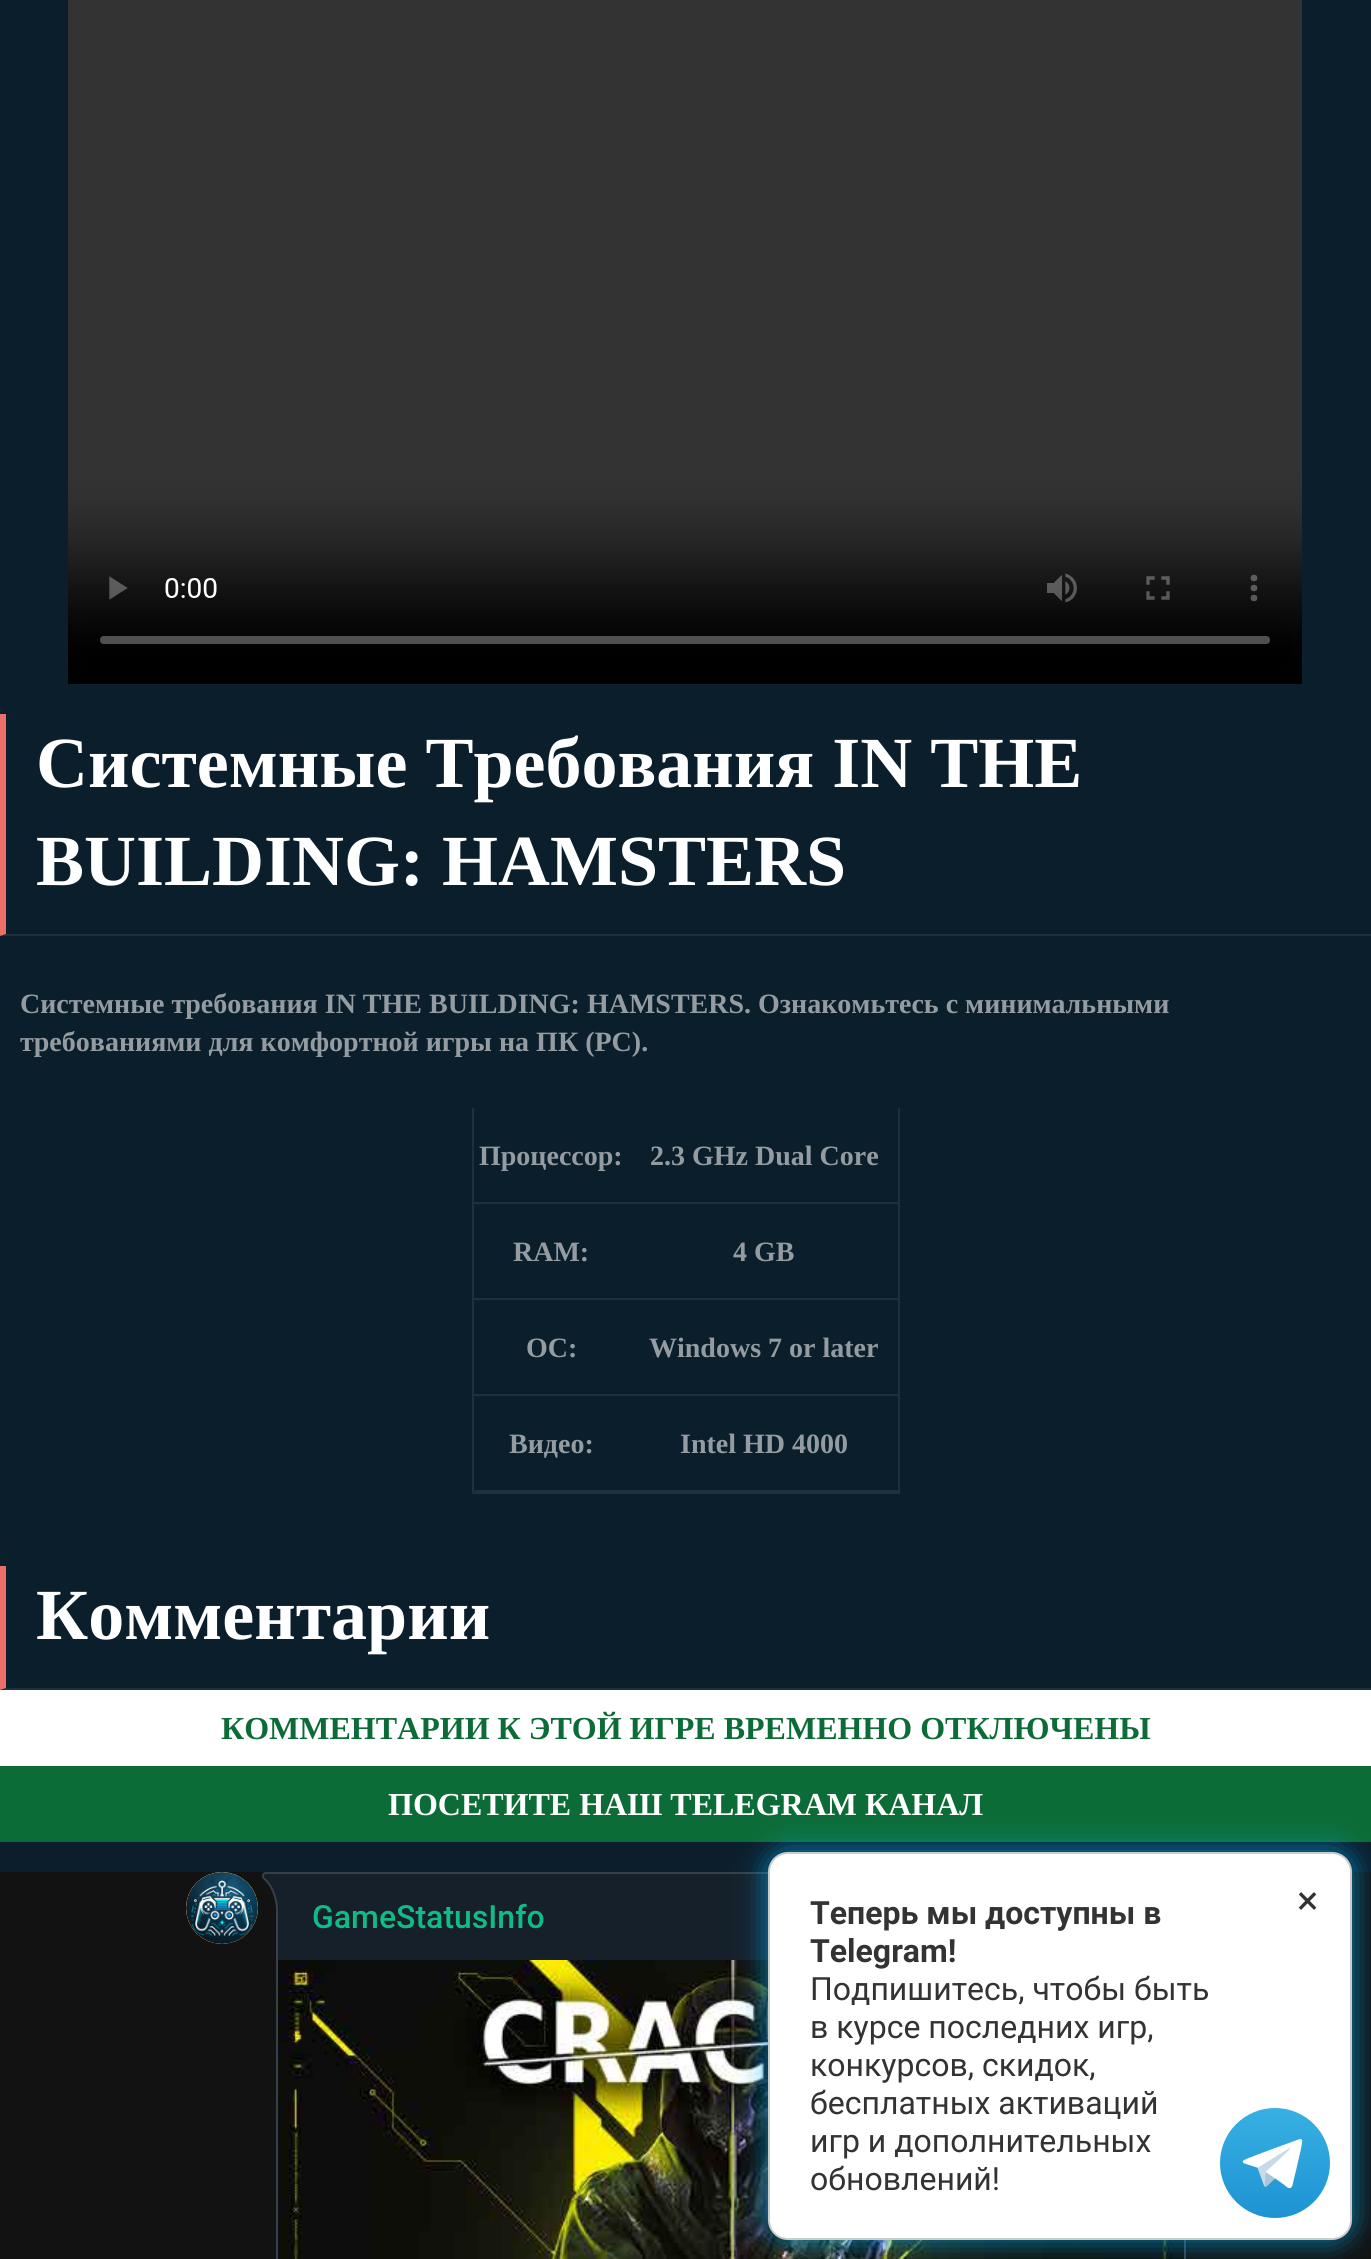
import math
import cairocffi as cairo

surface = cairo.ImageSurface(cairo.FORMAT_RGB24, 1371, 2259)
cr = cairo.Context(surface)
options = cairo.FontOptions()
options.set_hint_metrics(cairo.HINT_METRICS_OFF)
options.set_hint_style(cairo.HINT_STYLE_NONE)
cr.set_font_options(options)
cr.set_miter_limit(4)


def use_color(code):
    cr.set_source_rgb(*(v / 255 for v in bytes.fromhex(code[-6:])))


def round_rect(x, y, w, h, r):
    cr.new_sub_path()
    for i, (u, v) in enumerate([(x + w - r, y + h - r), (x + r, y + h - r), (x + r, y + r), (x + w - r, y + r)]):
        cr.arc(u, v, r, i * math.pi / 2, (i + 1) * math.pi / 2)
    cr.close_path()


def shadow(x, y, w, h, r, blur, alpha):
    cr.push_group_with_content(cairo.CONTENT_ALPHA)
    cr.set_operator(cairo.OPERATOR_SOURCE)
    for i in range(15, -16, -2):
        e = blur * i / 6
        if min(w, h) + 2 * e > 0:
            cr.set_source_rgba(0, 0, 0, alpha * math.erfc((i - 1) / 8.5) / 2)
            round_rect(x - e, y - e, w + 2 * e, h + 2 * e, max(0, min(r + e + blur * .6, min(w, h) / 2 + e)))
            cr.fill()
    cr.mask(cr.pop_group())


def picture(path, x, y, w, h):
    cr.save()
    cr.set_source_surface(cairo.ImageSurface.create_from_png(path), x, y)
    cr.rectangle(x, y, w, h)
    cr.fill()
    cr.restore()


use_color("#0b1e2c")
cr.paint()
picture("img1.png", 68, 0, 1234, 684)
use_color("#1f303d")
cr.new_path()
cr.move_to(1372, 936)
cr.line_to(0, 936)
cr.line_to(6, 934)
cr.line_to(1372, 934)
cr.close_path()
cr.fill()
use_color("#eb6e68")
cr.new_path()
cr.move_to(0, 936)
cr.line_to(0, 714)
cr.line_to(6, 714)
cr.line_to(6, 934)
cr.close_path()
cr.fill()
cr.select_font_face("Liberation Serif", cairo.FONT_SLANT_NORMAL, cairo.FONT_WEIGHT_BOLD)
cr.set_font_size(72)
use_color("#ffffff")
cr.move_to(36, 787)
cr.show_text("Системные Требования IN THE")
cr.move_to(36, 885)
cr.show_text("BUILDING: HAMSTERS")
cr.set_font_size(28)
use_color("#949ca2")
cr.move_to(20, 1013)
cr.show_text("Системные требования IN THE BUILDING: HAMSTERS. Ознакомьтесь с минимальными")
cr.move_to(20, 1051)
cr.show_text("требованиями для комфортной игры на ПК (PC).")
use_color("#1f303d")
cr.new_path()
cr.move_to(900, 1108)
cr.line_to(900, 1494)
cr.line_to(898, 1492)
cr.line_to(898, 1108)
cr.close_path()
cr.fill()
cr.set_source_rgba(1, 1, 1, 0.08)
cr.new_path()
cr.move_to(900, 1494)
cr.line_to(472, 1494)
cr.line_to(474, 1492)
cr.line_to(898, 1492)
cr.close_path()
cr.fill()
cr.new_path()
cr.move_to(472, 1494)
cr.line_to(472, 1108)
cr.line_to(474, 1108)
cr.line_to(474, 1492)
cr.close_path()
cr.fill()
use_color("#1f303d")
cr.rectangle(474, 1202, 424, 2)
cr.fill()
use_color("#949ca2")
cr.move_to(479, 1165)
cr.show_text("Процессор:")
cr.move_to(650, 1165)
cr.show_text("2.3 GHz Dual Core")
use_color("#1f303d")
cr.rectangle(474, 1298, 424, 2)
cr.fill()
use_color("#949ca2")
cr.move_to(513, 1261)
cr.show_text("RAM:")
cr.move_to(733, 1261)
cr.show_text("4 GB")
use_color("#1f303d")
cr.rectangle(474, 1394, 424, 2)
cr.fill()
use_color("#949ca2")
cr.move_to(526, 1357)
cr.show_text("OC:")
cr.move_to(649, 1357)
cr.show_text("Windows 7 or later")
use_color("#1f303d")
cr.rectangle(474, 1490, 424, 2)
cr.fill()
use_color("#949ca2")
cr.move_to(509, 1453)
cr.show_text("Видео:")
cr.move_to(680, 1453)
cr.show_text("Intel HD 4000")
use_color("#1f303d")
cr.new_path()
cr.move_to(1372, 1690)
cr.line_to(0, 1690)
cr.line_to(6, 1688)
cr.line_to(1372, 1688)
cr.close_path()
cr.fill()
use_color("#eb6e68")
cr.new_path()
cr.move_to(0, 1690)
cr.line_to(0, 1566)
cr.line_to(6, 1566)
cr.line_to(6, 1688)
cr.close_path()
cr.fill()
cr.set_font_size(72)
use_color("#ffffff")
cr.move_to(36, 1639)
cr.show_text("Комментарии")
use_color("#0c6c37")
cr.rectangle(0, 1766, 1371, 76)
cr.fill()
use_color("#ffffff")
cr.rectangle(0, 1690, 1371, 76)
cr.fill()
cr.set_font_size(32)
use_color("#0c6c37")
cr.move_to(221, 1739)
cr.show_text("КОММЕНТАРИИ К ЭТОЙ ИГРЕ ВРЕМЕННО ОТКЛЮЧЕНЫ")
use_color("#ffffff")
cr.move_to(388, 1815)
cr.show_text("ПОСЕТИТЕ НАШ TELEGRAM КАНАЛ")
picture("img2.png", 0, 1872, 1371, 387)
use_color("#00b7ff")
shadow(768, 1852, 584, 388, 20, 15, 0.7)
use_color("#ffffff")
round_rect(769, 1853, 582, 386, 19)
cr.fill_preserve()
use_color("#cccccc")
cr.stroke()
cr.select_font_face("Roboto", cairo.FONT_SLANT_NORMAL, cairo.FONT_WEIGHT_BOLD)
use_color("#333333")
cr.move_to(810, 1924)
cr.show_text("Теперь мы доступны в")
cr.move_to(810, 1962)
cr.show_text("Telegram!")
cr.select_font_face("Roboto")
cr.move_to(810, 2000)
cr.show_text("Подпишитесь, чтобы быть")
cr.move_to(810, 2038)
cr.show_text("в курсе последних игр,")
cr.move_to(810, 2076)
cr.show_text("конкурсов, скидок,")
cr.move_to(810, 2114)
cr.show_text("бесплатных активаций")
cr.move_to(810, 2152)
cr.show_text("игр и дополнительных")
cr.move_to(810, 2190)
cr.show_text("обновлений!")
picture("img3.png", 1220, 2108, 110, 110)
cr.set_font_size(40)
cr.move_to(1297, 1914)
cr.show_text("×")
surface.write_to_png("result.png")
